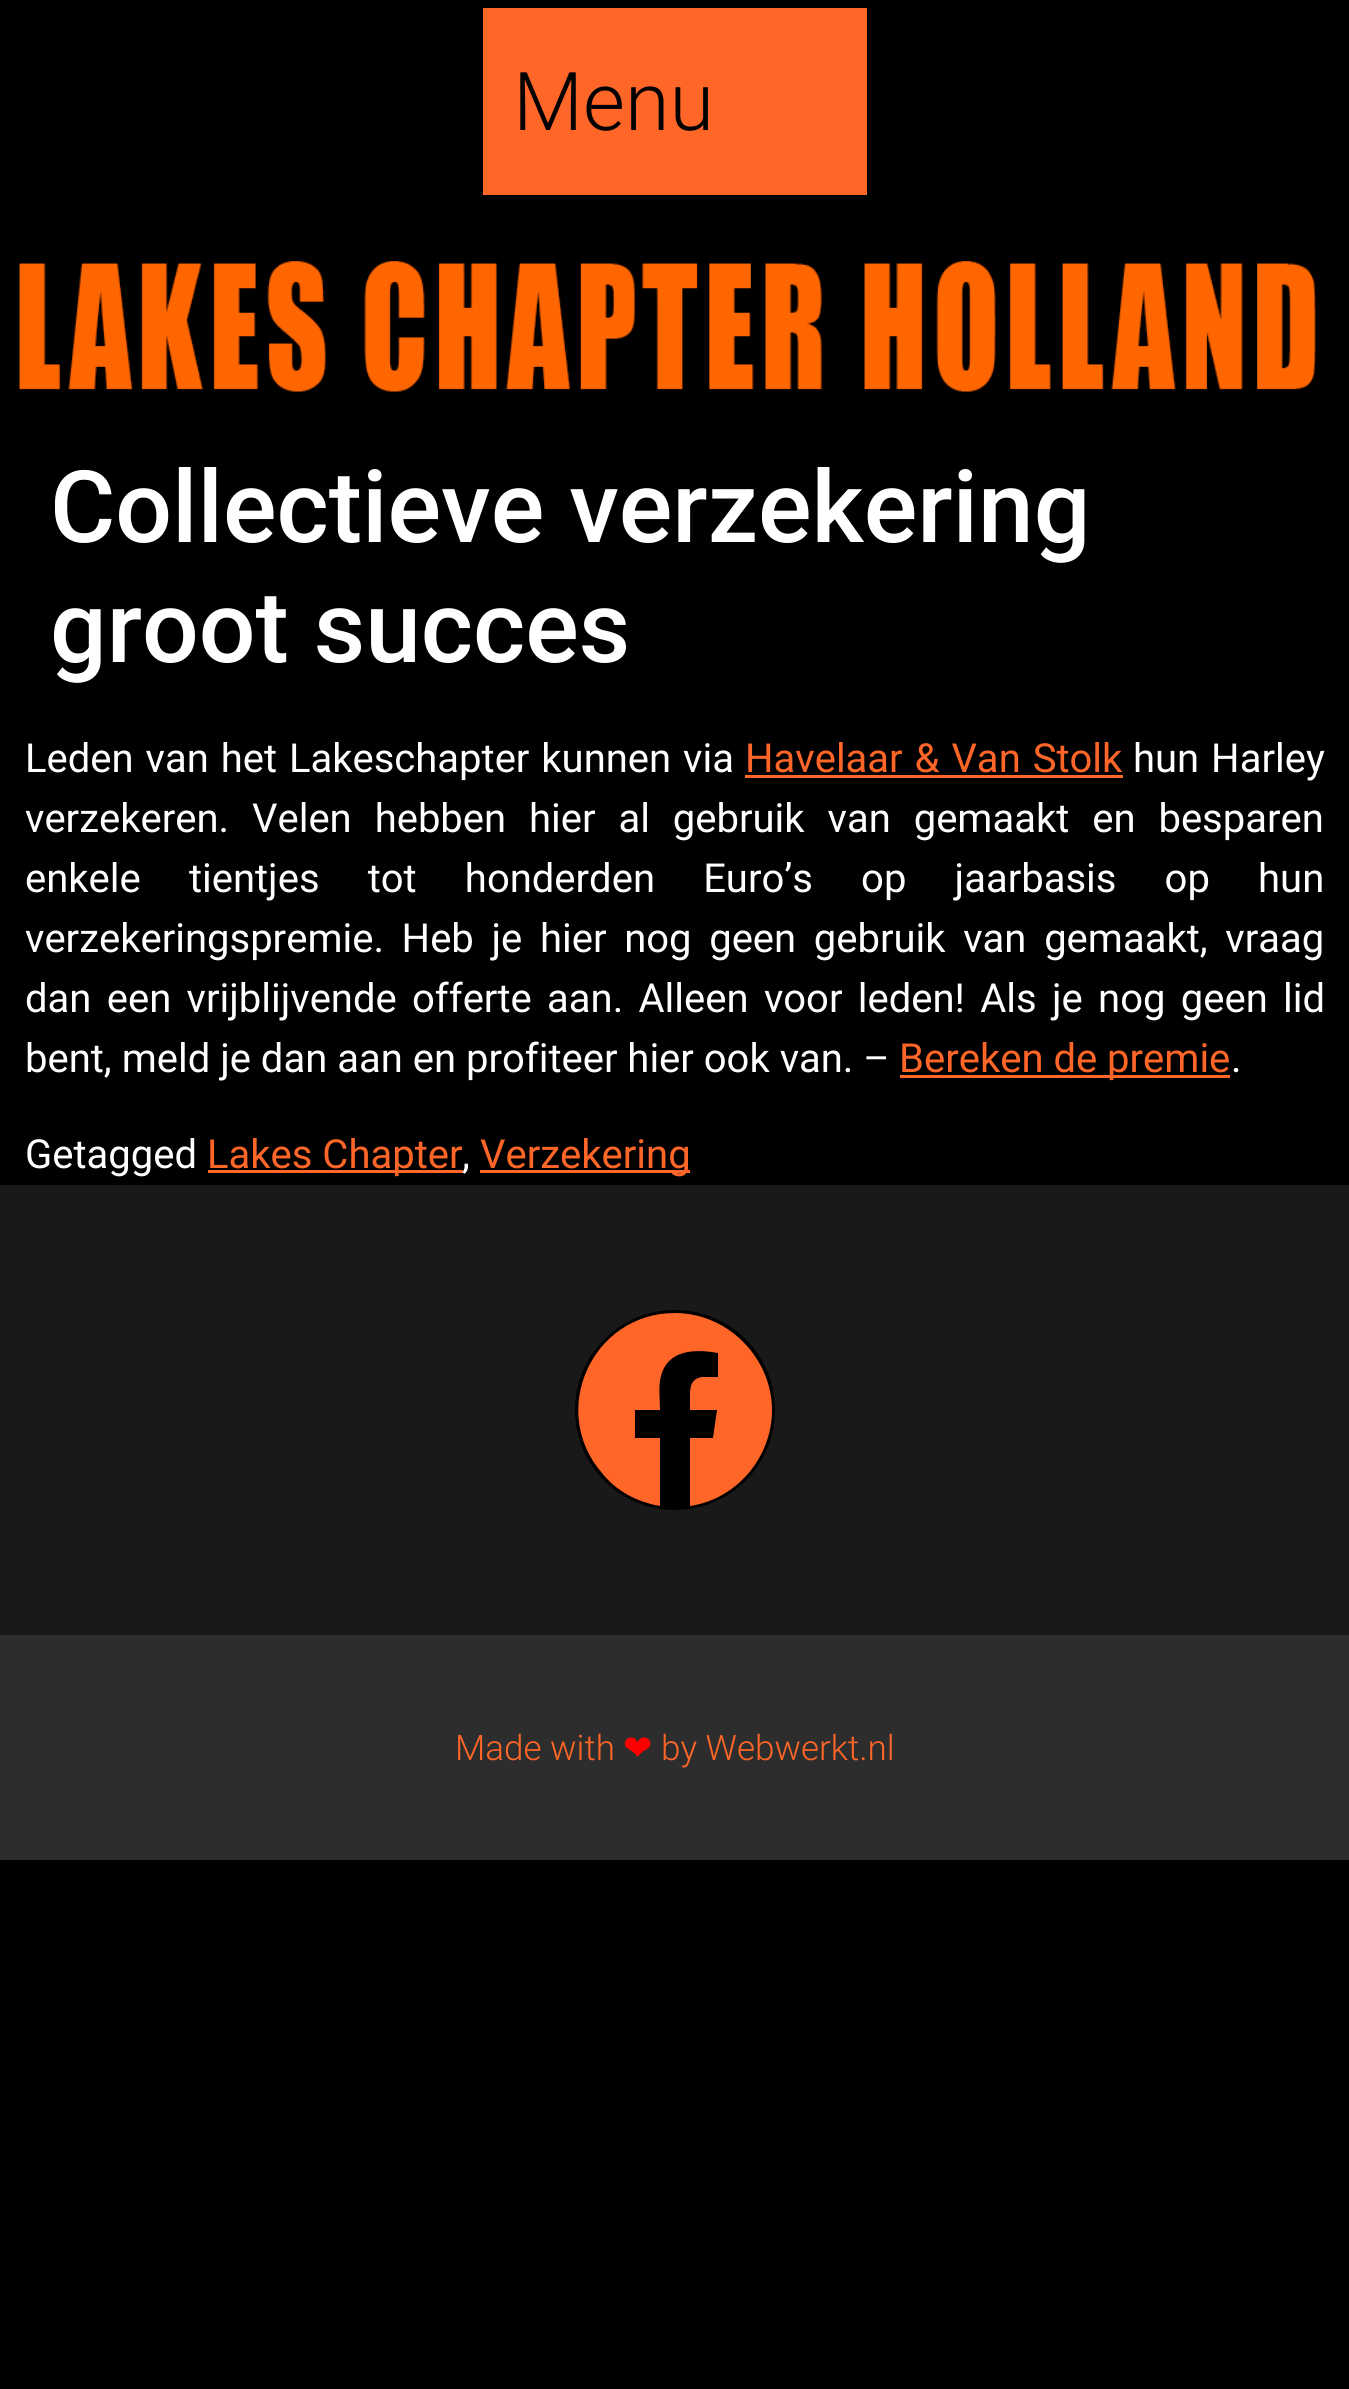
import math
import cairocffi as cairo

surface = cairo.ImageSurface(cairo.FORMAT_RGB24, 1349, 2389)
cr = cairo.Context(surface)
options = cairo.FontOptions()
options.set_hint_metrics(cairo.HINT_METRICS_OFF)
options.set_hint_style(cairo.HINT_STYLE_NONE)
cr.set_font_options(options)
cr.set_miter_limit(4)


def use_color(code):
    cr.set_source_rgb(*(v / 255 for v in bytes.fromhex(code[-6:])))


def spaced_text(x, y, s, letter, word):
    cr.move_to(x, y)
    for ch in s:
        cr.show_text(ch)
        cr.rel_move_to(letter + word * (ch == ' '), 0)


def round_rect(x, y, w, h, r):
    cr.new_sub_path()
    for i, (u, v) in enumerate([(x + w - r, y + h - r), (x + r, y + h - r), (x + r, y + r), (x + w - r, y + r)]):
        cr.arc(u, v, r, i * math.pi / 2, (i + 1) * math.pi / 2)
    cr.close_path()


def picture(path, x, y, w, h):
    cr.save()
    cr.set_source_surface(cairo.ImageSurface.create_from_png(path), x, y)
    cr.rectangle(x, y, w, h)
    cr.fill()
    cr.restore()


use_color("#000000")
cr.paint()
use_color("#ff6627")
round_rect(479, 4, 392, 195, 4)
cr.fill_preserve()
use_color("#000000")
cr.set_line_width(8)
cr.stroke()
cr.select_font_face("Roboto Light")
cr.set_font_size(81)
cr.move_to(513, 130)
cr.show_text("Menu")
picture("img1.png", 19, 261, 1297, 131)
cr.select_font_face("Roboto Medium")
cr.set_font_size(100)
use_color("#ffffff")
cr.move_to(50, 542)
cr.show_text("Collectieve verzekering")
cr.move_to(50, 662)
cr.show_text("groot succes")
cr.select_font_face("Roboto")
cr.set_font_size(40)
spaced_text(25, 772, "Leden van het Lakeschapter kunnen via", 0, 2)
use_color("#ff6627")
spaced_text(745, 772, "Havelaar & Van Stolk", 0, 2)
cr.rectangle(745, 775, 378, 3)
cr.fill()
use_color("#ffffff")
spaced_text(1133, 772, "hun Harley", 0, 2)
spaced_text(25, 832, "verzekeren. Velen hebben hier al gebruik van gemaakt en besparen", 0, 13)
spaced_text(25, 892, "enkele tientjes tot honderden Euro’s op jaarbasis op hun", 0, 38.25)
spaced_text(25, 952, "verzekeringspremie. Heb je hier nog geen gebruik van gemaakt, vraag", 0, 7.75)
spaced_text(25, 1012, "dan een vrijblijvende offerte aan. Alleen voor leden! Als je nog geen lid", 0, 5.4)
cr.move_to(25, 1072)
cr.show_text("bent, meld je dan aan en profiteer hier ook van. –")
use_color("#ff6627")
cr.rectangle(900, 1075, 330, 3)
cr.fill()
cr.move_to(899, 1072)
cr.show_text("Bereken de premie")
use_color("#ffffff")
cr.move_to(1231, 1072)
cr.show_text(".")
cr.move_to(25, 1168)
cr.show_text("Getagged")
use_color("#ff6627")
cr.rectangle(208, 1170, 255, 3)
cr.fill()
cr.move_to(207, 1168)
cr.show_text("Lakes Chapter")
use_color("#ffffff")
cr.move_to(462, 1168)
cr.show_text(",")
use_color("#ff6627")
cr.rectangle(480, 1170, 210, 3)
cr.fill()
cr.move_to(480, 1168)
cr.show_text("Verzekering")
use_color("#191919")
cr.rectangle(0, 1185, 1349, 450)
cr.fill()
use_color("#000000")
cr.arc(675, 1410, 100, 0, 2 * math.pi)
cr.fill()
use_color("#ff6627")
cr.new_path()
cr.move_to(772, 1410)
cr.curve_to(772, 1457, 737, 1499, 690, 1506)
cr.line_to(690, 1438)
cr.line_to(713, 1438)
cr.line_to(717, 1410)
cr.line_to(690, 1410)
cr.line_to(690, 1398)
cr.curve_to(690, 1388, 690, 1379, 702, 1377)
cr.line_to(718, 1377)
cr.line_to(718, 1353)
cr.curve_to(696, 1349, 668, 1349, 661, 1376)
cr.curve_to(658, 1387, 660, 1399, 660, 1410)
cr.line_to(635, 1410)
cr.line_to(635, 1438)
cr.line_to(660, 1438)
cr.line_to(660, 1506)
cr.curve_to(637, 1502, 616, 1491, 602, 1473)
cr.curve_to(548, 1411, 592, 1313, 675, 1313)
cr.curve_to(694, 1313, 713, 1319, 729, 1330)
cr.curve_to(755, 1348, 772, 1378, 772, 1410)
cr.close_path()
cr.fill()
use_color("#2d2d2d")
cr.rectangle(0, 1635, 1349, 225)
cr.fill()
cr.select_font_face("Roboto Light")
cr.set_font_size(35)
use_color("#ff6627")
cr.move_to(455, 1760)
cr.show_text("Made with")
cr.select_font_face("DejaVu Sans")
use_color("#ff0000")
cr.move_to(623, 1760)
cr.show_text("❤")
cr.select_font_face("Roboto Light")
use_color("#ff6627")
cr.move_to(661, 1760)
cr.show_text("by Webwerkt.nl")
surface.write_to_png("result.png")
